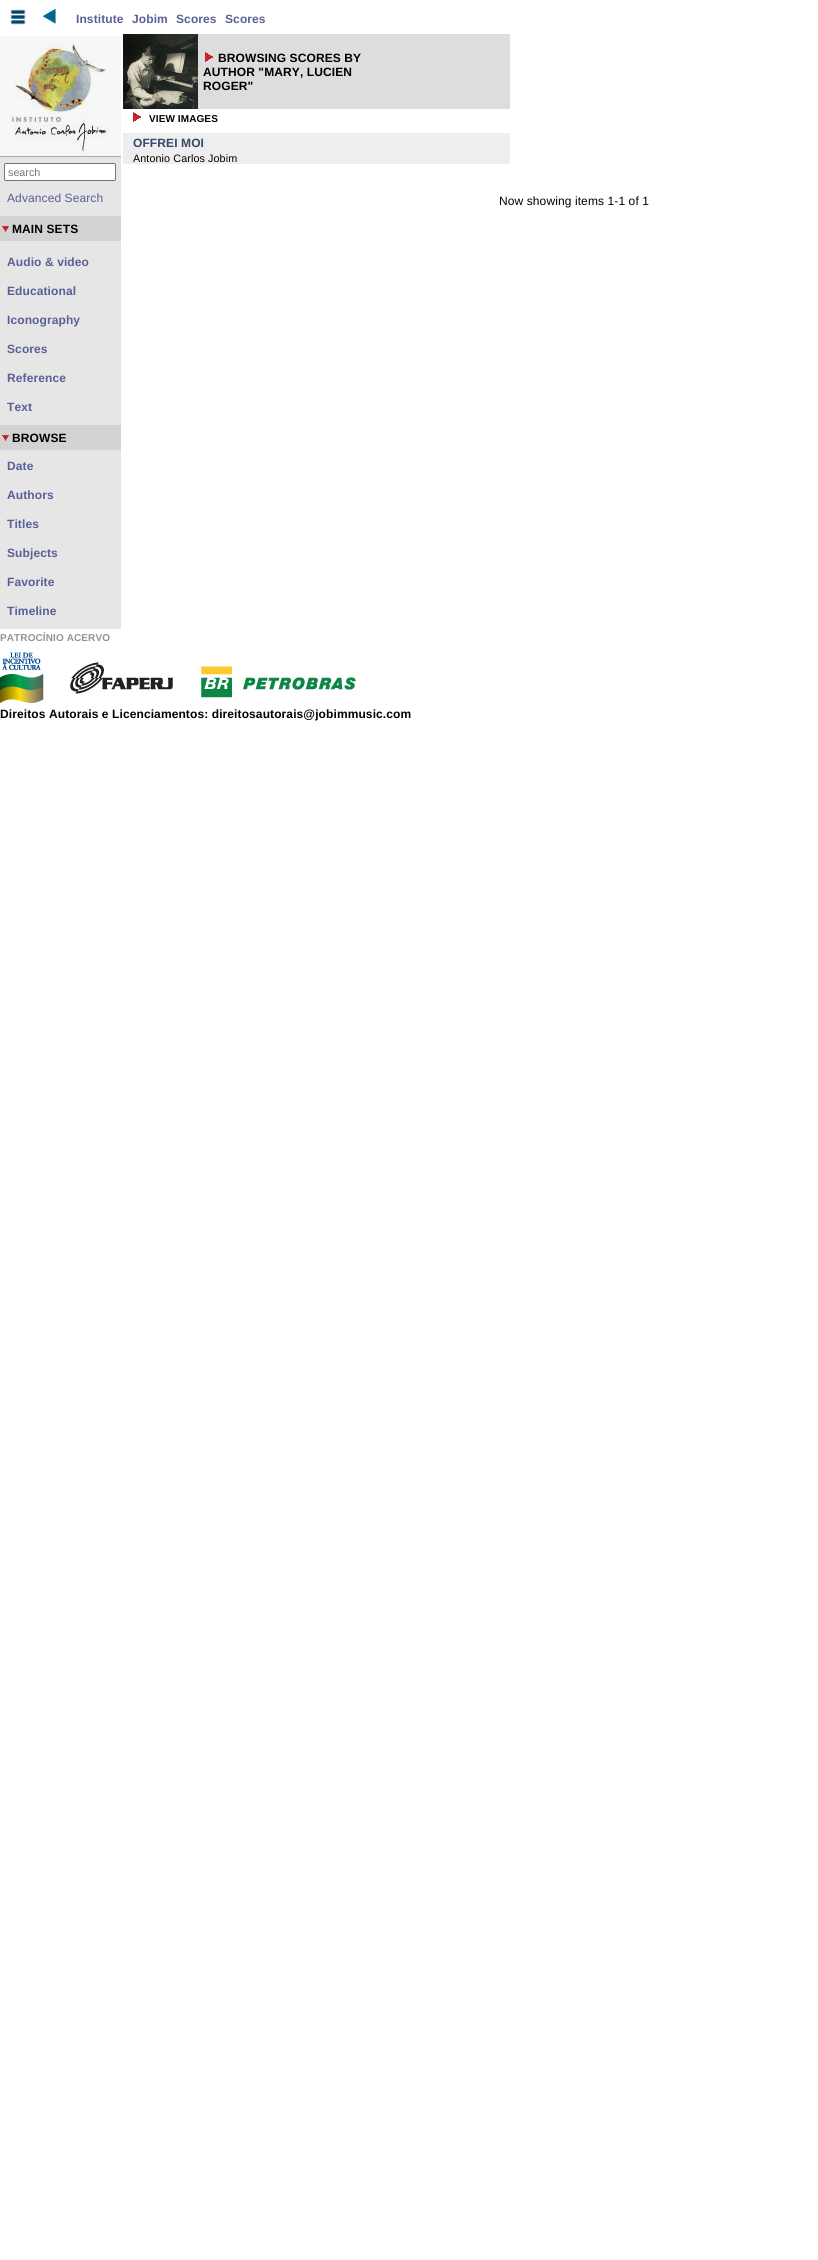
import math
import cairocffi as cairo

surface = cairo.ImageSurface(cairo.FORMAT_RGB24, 818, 2260)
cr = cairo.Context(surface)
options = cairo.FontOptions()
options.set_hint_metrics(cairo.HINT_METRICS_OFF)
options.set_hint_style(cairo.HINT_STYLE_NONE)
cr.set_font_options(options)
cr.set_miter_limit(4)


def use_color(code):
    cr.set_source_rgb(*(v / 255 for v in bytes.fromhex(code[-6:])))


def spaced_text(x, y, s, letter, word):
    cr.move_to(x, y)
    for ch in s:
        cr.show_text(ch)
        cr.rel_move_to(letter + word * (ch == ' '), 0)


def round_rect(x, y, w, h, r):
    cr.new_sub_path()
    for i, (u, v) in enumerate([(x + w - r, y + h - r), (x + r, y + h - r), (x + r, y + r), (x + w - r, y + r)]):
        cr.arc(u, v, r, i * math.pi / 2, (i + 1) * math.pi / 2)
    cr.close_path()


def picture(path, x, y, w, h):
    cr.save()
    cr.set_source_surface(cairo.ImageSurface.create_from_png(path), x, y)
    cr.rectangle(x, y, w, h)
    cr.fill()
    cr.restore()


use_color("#ffffff")
cr.paint()
picture("img1.png", 10, 9, 16, 16)
picture("img2.png", 40, 6, 17, 20)
cr.select_font_face("Liberation Sans", cairo.FONT_SLANT_NORMAL, cairo.FONT_WEIGHT_BOLD)
cr.set_font_size(12)
use_color("#595f97")
spaced_text(76, 23, "Institute", 0.1, 0)
spaced_text(132, 23, "Jobim", 0.1, 0)
spaced_text(176, 23, "Scores", 0.1, 0)
spaced_text(225, 23, "Scores", 0.1, 0)
use_color("#dddddd")
cr.rectangle(198, 34, 312, 75)
cr.fill()
picture("img3.png", 123, 34, 75, 75)
picture("img4.png", 205, 52, 8, 10)
use_color("#000000")
spaced_text(218, 62, "BROWSING SCORES BY", 0.1, 0)
spaced_text(203, 76, "AUTHOR \"MARY, LUCIEN", 0.1, 0)
spaced_text(203, 90, "ROGER\"", 0.1, 0)
picture("img5.png", 133, 112, 8, 10)
cr.set_font_size(10)
spaced_text(149, 122, "VIEW IMAGES", 0.1, 0)
use_color("#eeeeee")
cr.rectangle(123, 133, 387, 31)
cr.fill()
cr.set_font_size(12)
use_color("#344967")
spaced_text(133, 147, "OFFREI MOI", 0.1, 0)
cr.select_font_face("Liberation Sans")
cr.set_font_size(10.75)
use_color("#000000")
spaced_text(133, 162, "Antonio Carlos Jobim", 0.1, 0)
cr.set_font_size(12)
spaced_text(499, 205, "Now showing items 1-1 of 1", 0.1, 0)
use_color("#e6e6e6")
cr.rectangle(0, 157, 121, 472)
cr.fill()
use_color("#aaaaaa")
cr.rectangle(0, 36, 121, 121)
cr.fill()
picture("img6.png", 0, 36, 121, 120)
use_color("#ffffff")
round_rect(4.5, 163.5, 111, 17, 1.5)
cr.fill_preserve()
use_color("#767676")
cr.set_line_width(1)
cr.stroke()
cr.set_font_size(10.75)
use_color("#757575")
cr.move_to(8, 176)
cr.show_text("search")
cr.set_font_size(12)
use_color("#595f97")
spaced_text(7, 202, "Advanced Search", 0.1, 0)
use_color("#d1d3d4")
cr.rectangle(0, 216, 121, 25)
cr.fill()
picture("img7.png", 2, 226, 7, 6)
cr.select_font_face("Liberation Sans", cairo.FONT_SLANT_NORMAL, cairo.FONT_WEIGHT_BOLD)
use_color("#000000")
spaced_text(12, 233, "MAIN SETS", 0.1, 0)
use_color("#595f97")
spaced_text(7, 266, "Audio & video", 0.1, 0)
spaced_text(7, 295, "Educational", 0.1, 0)
spaced_text(7, 324, "Iconography", 0.1, 0)
spaced_text(7, 353, "Scores", 0.1, 0)
spaced_text(7, 382, "Reference", 0.1, 0)
spaced_text(7, 411, "Text", 0.1, 0)
use_color("#d1d3d4")
cr.rectangle(0, 425, 121, 25)
cr.fill()
picture("img7.png", 2, 435, 7, 6)
use_color("#000000")
spaced_text(12, 442, "BROWSE", 0.1, 0)
use_color("#595f97")
spaced_text(7, 470, "Date", 0.1, 0)
spaced_text(7, 499, "Authors", 0.1, 0)
spaced_text(7, 528, "Titles", 0.1, 0)
spaced_text(7, 557, "Subjects", 0.1, 0)
spaced_text(7, 586, "Favorite", 0.1, 0)
spaced_text(7, 615, "Timeline", 0.1, 0)
cr.set_font_size(10)
use_color("#939393")
spaced_text(0, 641, "PATROCÍNIO ACERVO", 0.1, 0)
picture("img8.png", 0, 646, 357, 57)
cr.set_font_size(12)
use_color("#000000")
spaced_text(0, 718, "Direitos Autorais e Licenciamentos: direitosautorais@jobimmusic.com", 0.1, 0)
surface.write_to_png("result.png")
